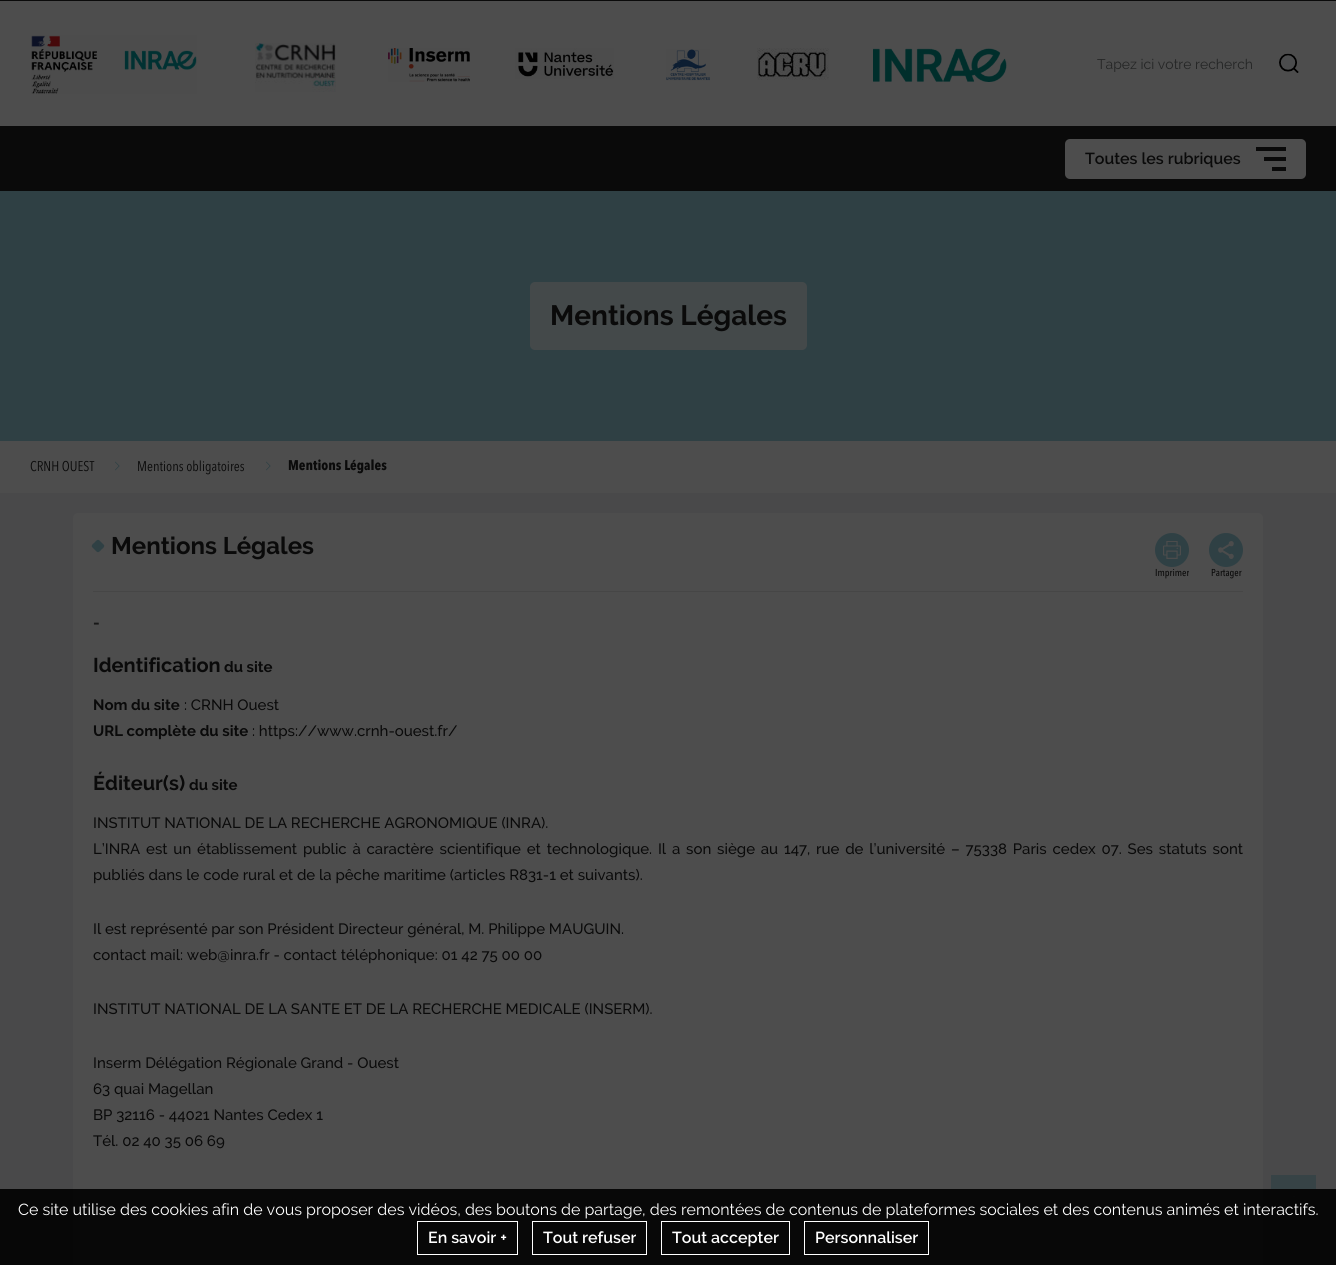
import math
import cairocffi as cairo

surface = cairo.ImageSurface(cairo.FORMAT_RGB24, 1336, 1265)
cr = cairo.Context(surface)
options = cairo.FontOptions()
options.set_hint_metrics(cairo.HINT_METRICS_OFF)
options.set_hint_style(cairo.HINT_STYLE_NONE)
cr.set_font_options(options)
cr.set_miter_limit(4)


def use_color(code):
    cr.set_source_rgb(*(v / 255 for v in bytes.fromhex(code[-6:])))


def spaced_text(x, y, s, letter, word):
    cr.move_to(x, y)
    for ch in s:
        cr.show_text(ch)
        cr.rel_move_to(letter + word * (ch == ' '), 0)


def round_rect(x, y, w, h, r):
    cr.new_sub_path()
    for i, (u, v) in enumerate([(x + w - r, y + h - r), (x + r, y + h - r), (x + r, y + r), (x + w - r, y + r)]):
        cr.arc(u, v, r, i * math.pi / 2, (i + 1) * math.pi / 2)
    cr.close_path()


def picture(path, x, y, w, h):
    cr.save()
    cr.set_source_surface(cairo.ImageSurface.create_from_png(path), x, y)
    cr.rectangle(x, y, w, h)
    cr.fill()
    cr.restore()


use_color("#4d4d4d")
cr.paint()
use_color("#0a0a0a")
cr.rectangle(0, 0, 1336, 1)
cr.fill()
picture("img1.png", 31, 35, 166, 59)
picture("img2.png", 255, 43, 81, 49)
picture("img3.png", 388, 48, 82, 34)
picture("img4.png", 515, 48, 99, 31)
picture("img5.png", 666, 49, 44, 32)
picture("img6.png", 757, 48, 72, 32)
picture("img7.png", 873, 48, 134, 34)
cr.save()
cr.rectangle(1097, 56, 155, 16)
cr.clip()
cr.select_font_face("Raleway")
cr.set_font_size(14)
use_color("#242525")
cr.move_to(1097, 69)
cr.show_text("Tapez ici votre recherch")
cr.restore()
picture("img8.png", 1279, 53, 20, 20)
cr.rectangle(0, 126, 1336, 65)
cr.fill()
use_color("#4d4d4d")
round_rect(1065, 139, 241, 40, 5)
cr.fill()
cr.select_font_face("Raleway SemiBold")
cr.set_font_size(16)
use_color("#0a0a0a")
cr.move_to(1085, 164)
cr.show_text("Toutes les rubriques")
cr.rectangle(1256, 147, 30, 4)
cr.fill()
cr.rectangle(1264, 157, 22, 4)
cr.fill()
cr.rectangle(1272, 167, 14, 4)
cr.fill()
use_color("#2f4044")
cr.rectangle(0, 191, 1336, 250)
cr.fill()
use_color("#44494a")
round_rect(530, 282, 277, 68, 5)
cr.fill()
cr.select_font_face("Raleway", cairo.FONT_SLANT_NORMAL, cairo.FONT_WEIGHT_BOLD)
cr.set_font_size(28)
use_color("#0a0a0a")
cr.move_to(550, 325)
cr.show_text("Mentions Légales")
cr.select_font_face("Avenir Next")
cr.set_font_size(14)
cr.move_to(30, 471)
cr.show_text("CRNH OUEST")
picture("img9.png", 115, 461, 5, 10)
cr.move_to(137, 471)
cr.show_text("Mentions obligatoires")
picture("img9.png", 266, 461, 5, 10)
cr.select_font_face("Avenir Next", cairo.FONT_SLANT_NORMAL, cairo.FONT_WEIGHT_BOLD)
cr.move_to(288, 470)
cr.show_text("Mentions Légales")
use_color("#49494a")
cr.rectangle(0, 493, 1336, 696)
cr.fill()
use_color("#070707")
cr.rectangle(0, 1189, 1336, 76)
cr.fill()
use_color("#4d4d4d")
round_rect(73, 513, 1190, 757, 5)
cr.fill()
use_color("#080808")
cr.rectangle(73, 1189, 1190, 76)
cr.fill()
use_color("#464646")
cr.rectangle(93, 591, 1150, 1)
cr.fill()
use_color("#2f4044")
cr.new_path()
cr.move_to(99.5, 540.5)
cr.line_to(104, 545)
cr.curve_to(105, 547, 102.5, 548.5, 101.5, 549.5)
cr.curve_to(100.5, 550.5, 98.5, 553.5, 96.5, 551.5)
cr.line_to(92, 547)
cr.curve_to(91, 545, 93.5, 543.5, 94.5, 542.5)
cr.curve_to(95.5, 541.5, 97.5, 538.5, 99.5, 540.5)
cr.close_path()
cr.fill()
cr.select_font_face("Raleway", cairo.FONT_SLANT_NORMAL, cairo.FONT_WEIGHT_BOLD)
cr.set_font_size(24)
use_color("#0a0a0a")
cr.move_to(111, 554)
cr.show_text("Mentions Légales")
use_color("#2f4044")
cr.new_path()
cr.arc(1172, 550, 17, 0, 2 * math.pi)
cr.fill()
picture("img10.png", 1163, 541, 18, 18)
cr.select_font_face("Avenir Next Medium")
cr.set_font_size(10)
use_color("#0a0a0a")
cr.move_to(1155, 576)
cr.show_text("Imprimer")
use_color("#2f4044")
cr.new_path()
cr.arc(1226, 550, 17, 0, 2 * math.pi)
cr.fill()
picture("img11.png", 1218, 541, 16, 18)
use_color("#0a0a0a")
cr.move_to(1211, 576)
cr.show_text("Partager")
cr.select_font_face("Raleway", cairo.FONT_SLANT_NORMAL, cairo.FONT_WEIGHT_BOLD)
cr.set_font_size(16)
use_color("#181818")
cr.move_to(93, 628)
cr.show_text("-")
cr.set_font_size(20)
use_color("#0a0a0a")
cr.move_to(93, 672)
cr.show_text("Identification")
cr.set_font_size(15)
cr.move_to(224, 672)
cr.show_text("du site")
cr.move_to(93, 710)
cr.show_text("Nom du site")
cr.select_font_face("Raleway Medium")
cr.move_to(184, 710)
cr.show_text(": CRNH Ouest")
cr.select_font_face("Raleway", cairo.FONT_SLANT_NORMAL, cairo.FONT_WEIGHT_BOLD)
cr.move_to(93, 736)
cr.show_text("URL complète du site")
cr.select_font_face("Raleway Medium")
cr.move_to(252, 736)
cr.show_text(": https://www.crnh-ouest.fr/")
cr.select_font_face("Raleway", cairo.FONT_SLANT_NORMAL, cairo.FONT_WEIGHT_BOLD)
cr.set_font_size(20)
cr.move_to(93, 790)
cr.show_text("Éditeur(s)")
cr.set_font_size(15)
cr.move_to(189, 790)
cr.show_text("du site")
cr.select_font_face("Raleway Medium")
cr.move_to(93, 828)
cr.show_text("INSTITUT NATIONAL DE LA RECHERCHE AGRONOMIQUE (INRA).")
spaced_text(93, 854, "L’INRA est un établissement public à caractère scientifique et technologique. Il a son siège au 147, rue de l’université – 75338 Paris cedex 07. Ses statuts sont", 0, 2)
cr.move_to(93, 880)
cr.show_text("publiés dans le code rural et de la pêche maritime (articles R831-1 et suivants).")
cr.move_to(93, 934)
cr.show_text("Il est représenté par son Président Directeur général, M. Philippe MAUGUIN.")
cr.move_to(93, 960)
cr.show_text("contact mail: web@inra.fr - contact téléphonique: 01 42 75 00 00")
cr.move_to(93, 1014)
cr.show_text("INSTITUT NATIONAL DE LA SANTE ET DE LA RECHERCHE MEDICALE (INSERM).")
cr.move_to(93, 1068)
cr.show_text("Inserm Délégation Régionale Grand - Ouest")
cr.move_to(93, 1094)
cr.show_text("63 quai Magellan")
cr.move_to(93, 1120)
cr.show_text("BP 32116 - 44021 Nantes Cedex 1")
cr.move_to(93, 1146)
cr.show_text("Tél. 02 40 35 06 69")
use_color("#374346")
cr.rectangle(1271, 1175, 45, 14)
cr.fill()
picture("img12.png", 1289, 1195, 10, 6)
cr.select_font_face("Raleway")
cr.set_font_size(16)
use_color("#ffffff")
cr.move_to(18, 1215)
cr.show_text("Ce site utilise des cookies afin de vous proposer des vidéos, des boutons de partage, des remontées de contenus de plateformes sociales et des contenus animés et interactifs.")
cr.rectangle(417.5, 1221.5, 100, 33)
cr.set_line_width(1)
cr.stroke()
cr.select_font_face("Raleway SemiBold")
cr.move_to(428, 1243)
cr.show_text("En savoir +")
cr.rectangle(532.5, 1221.5, 114, 33)
cr.stroke()
cr.move_to(543, 1243)
cr.show_text("Tout refuser")
cr.rectangle(661.5, 1221.5, 128, 33)
cr.stroke()
cr.move_to(672, 1243)
cr.show_text("Tout accepter")
cr.rectangle(804.5, 1221.5, 124, 33)
cr.stroke()
cr.move_to(815, 1243)
cr.show_text("Personnaliser")
surface.write_to_png("result.png")
